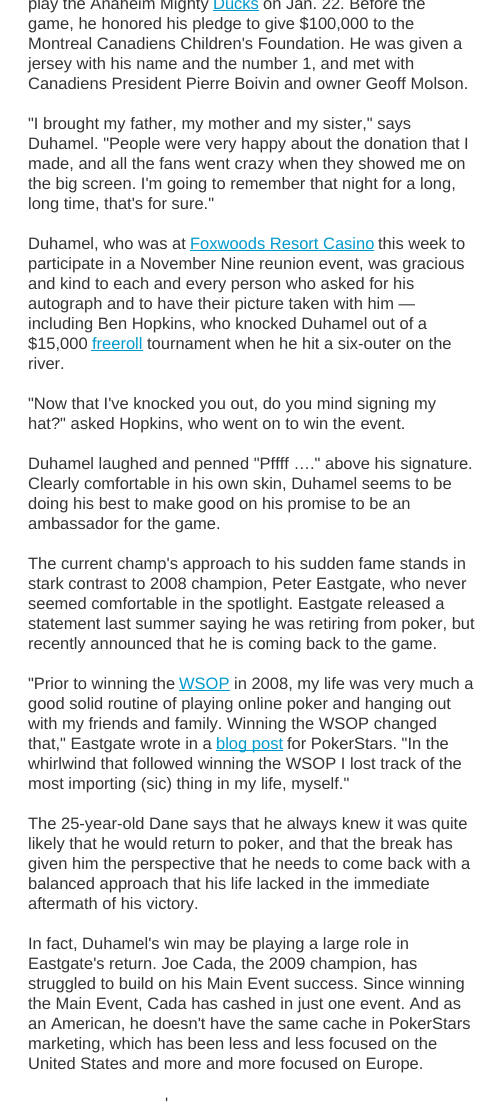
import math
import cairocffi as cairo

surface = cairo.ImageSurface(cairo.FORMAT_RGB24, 502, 1104)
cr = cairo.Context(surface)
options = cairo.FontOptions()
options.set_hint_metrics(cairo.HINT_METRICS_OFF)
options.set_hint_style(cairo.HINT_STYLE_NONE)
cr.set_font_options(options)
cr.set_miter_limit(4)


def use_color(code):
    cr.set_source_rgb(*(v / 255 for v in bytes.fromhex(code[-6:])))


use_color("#ffffff")
cr.paint()
cr.select_font_face("Liberation Sans")
cr.set_font_size(16.5)
use_color("#333333")
cr.move_to(28, 9)
cr.show_text("play the Anaheim Mighty")
use_color("#0099cc")
cr.move_to(213, 9)
cr.show_text("Ducks")
cr.rectangle(213, 10, 46, 1)
cr.fill()
use_color("#333333")
cr.move_to(263, 9)
cr.show_text("on Jan. 22. Before the")
cr.move_to(28, 29)
cr.show_text("game, he honored his pledge to give $100,000 to the")
cr.move_to(28, 49)
cr.show_text("Montreal Canadiens Children's Foundation. He was given a")
cr.move_to(28, 69)
cr.show_text("jersey with his name and the number 1, and met with")
cr.move_to(28, 89)
cr.show_text("Canadiens President Pierre Boivin and owner Geoff Molson.")
cr.move_to(28, 129)
cr.show_text("\"I brought my father, my mother and my sister,\" says")
cr.move_to(28, 149)
cr.show_text("Duhamel. \"People were very happy about the donation that I")
cr.move_to(28, 169)
cr.show_text("made, and all the fans went crazy when they showed me on")
cr.move_to(28, 189)
cr.show_text("the big screen. I'm going to remember that night for a long,")
cr.move_to(28, 209)
cr.show_text("long time, that's for sure.\"")
cr.move_to(28, 249)
cr.show_text("Duhamel, who was at")
use_color("#0099cc")
cr.move_to(190, 249)
cr.show_text("Foxwoods Resort Casino")
cr.rectangle(190, 250, 184, 1)
cr.fill()
use_color("#333333")
cr.move_to(378, 249)
cr.show_text("this week to")
cr.move_to(28, 269)
cr.show_text("participate in a November Nine reunion event, was gracious")
cr.move_to(28, 289)
cr.show_text("and kind to each and every person who asked for his")
cr.move_to(28, 309)
cr.show_text("autograph and to have their picture taken with him —")
cr.move_to(28, 329)
cr.show_text("including Ben Hopkins, who knocked Duhamel out of a")
cr.move_to(28, 349)
cr.show_text("$15,000")
use_color("#0099cc")
cr.move_to(92, 349)
cr.show_text("freeroll")
cr.rectangle(91, 350, 52, 1)
cr.fill()
use_color("#333333")
cr.move_to(147, 349)
cr.show_text("tournament when he hit a six-outer on the")
cr.move_to(28, 369)
cr.show_text("river.")
cr.move_to(28, 409)
cr.show_text("\"Now that I've knocked you out, do you mind signing my")
cr.move_to(28, 429)
cr.show_text("hat?\" asked Hopkins, who went on to win the event.")
cr.move_to(28, 469)
cr.show_text("Duhamel laughed and penned \"Pffff ….\" above his signature.")
cr.move_to(28, 489)
cr.show_text("Clearly comfortable in his own skin, Duhamel seems to be")
cr.move_to(28, 509)
cr.show_text("doing his best to make good on his promise to be an")
cr.move_to(28, 529)
cr.show_text("ambassador for the game.")
cr.move_to(28, 569)
cr.show_text("The current champ's approach to his sudden fame stands in")
cr.move_to(28, 589)
cr.show_text("stark contrast to 2008 champion, Peter Eastgate, who never")
cr.move_to(28, 609)
cr.show_text("seemed comfortable in the spotlight. Eastgate released a")
cr.move_to(28, 629)
cr.show_text("statement last summer saying he was retiring from poker, but")
cr.move_to(28, 649)
cr.show_text("recently announced that he is coming back to the game.")
cr.move_to(28, 689)
cr.show_text("\"Prior to winning the")
use_color("#0099cc")
cr.move_to(179, 689)
cr.show_text("WSOP")
cr.rectangle(179, 690, 51, 1)
cr.fill()
use_color("#333333")
cr.move_to(234, 689)
cr.show_text("in 2008, my life was very much a")
cr.move_to(28, 709)
cr.show_text("good solid routine of playing online poker and hanging out")
cr.move_to(28, 729)
cr.show_text("with my friends and family. Winning the WSOP changed")
cr.move_to(28, 749)
cr.show_text("that,\" Eastgate wrote in a")
use_color("#0099cc")
cr.rectangle(216, 750, 67, 1)
cr.fill()
cr.move_to(216, 749)
cr.show_text("blog post")
use_color("#333333")
cr.move_to(287, 749)
cr.show_text("for PokerStars. \"In the")
cr.move_to(28, 769)
cr.show_text("whirlwind that followed winning the WSOP I lost track of the")
cr.move_to(28, 789)
cr.show_text("most importing (sic) thing in my life, myself.\"")
cr.move_to(28, 829)
cr.show_text("The 25-year-old Dane says that he always knew it was quite")
cr.move_to(28, 849)
cr.show_text("likely that he would return to poker, and that the break has")
cr.move_to(28, 869)
cr.show_text("given him the perspective that he needs to come back with a")
cr.move_to(28, 889)
cr.show_text("balanced approach that his life lacked in the immediate")
cr.move_to(28, 909)
cr.show_text("aftermath of his victory.")
cr.move_to(28, 949)
cr.show_text("In fact, Duhamel's win may be playing a large role in")
cr.move_to(28, 969)
cr.show_text("Eastgate's return. Joe Cada, the 2009 champion, has")
cr.move_to(28, 989)
cr.show_text("struggled to build on his Main Event success. Since winning")
cr.move_to(28, 1009)
cr.show_text("the Main Event, Cada has cashed in just one event. And as")
cr.move_to(28, 1029)
cr.show_text("an American, he doesn't have the same cache in PokerStars")
cr.move_to(28, 1049)
cr.show_text("marketing, which has been less and less focused on the")
cr.move_to(28, 1069)
cr.show_text("United States and more and more focused on Europe.")
cr.move_to(165, 1109)
cr.show_text("'")
surface.write_to_png("result.png")
